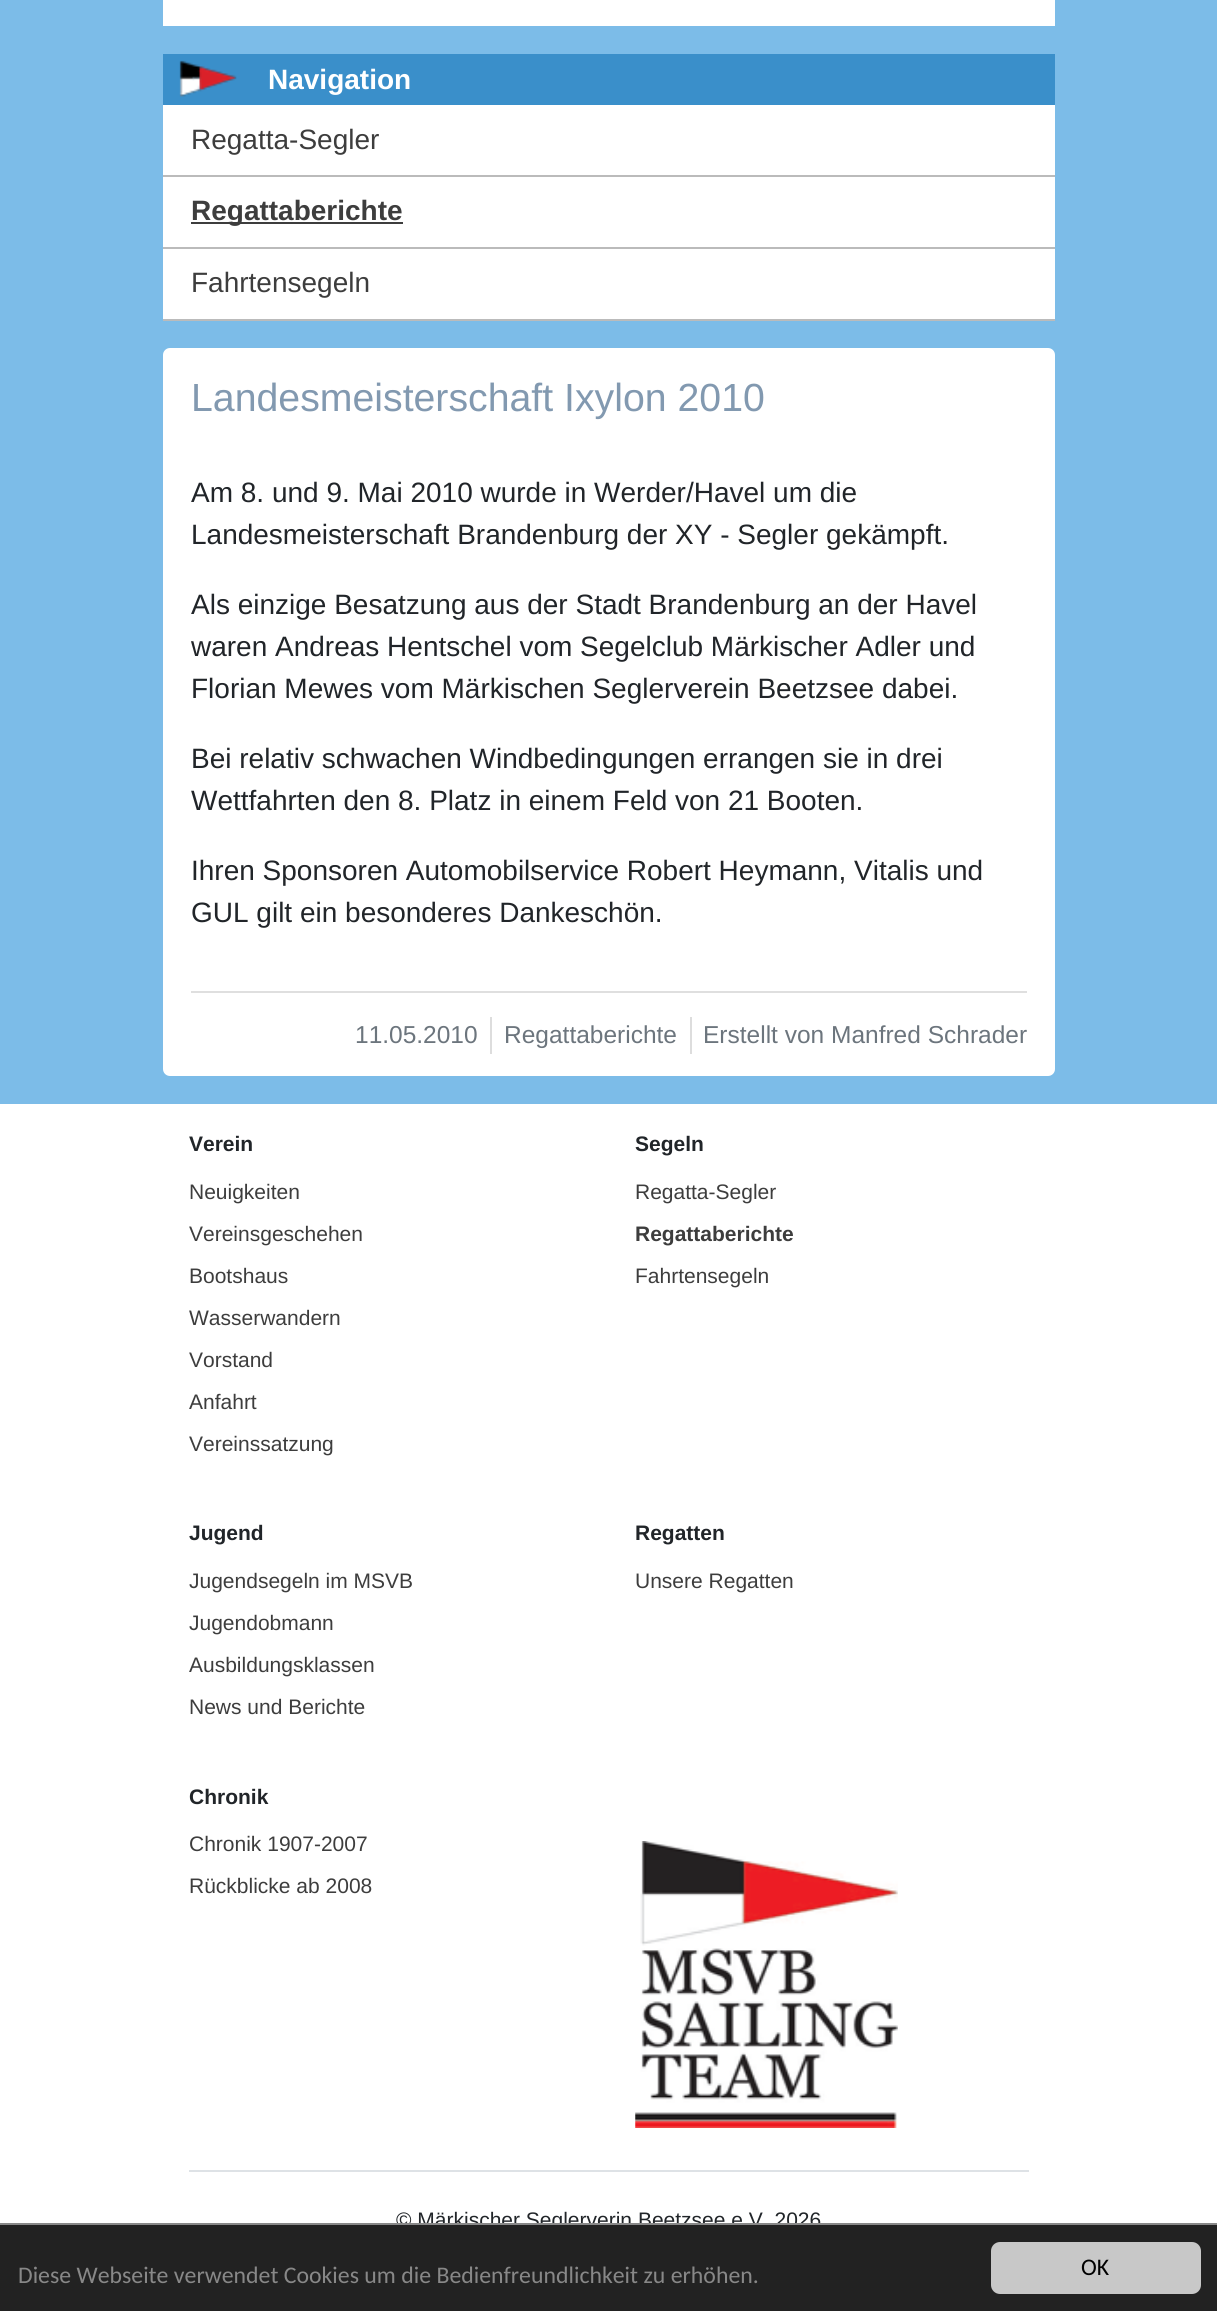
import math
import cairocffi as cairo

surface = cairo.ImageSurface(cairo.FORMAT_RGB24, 1217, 2311)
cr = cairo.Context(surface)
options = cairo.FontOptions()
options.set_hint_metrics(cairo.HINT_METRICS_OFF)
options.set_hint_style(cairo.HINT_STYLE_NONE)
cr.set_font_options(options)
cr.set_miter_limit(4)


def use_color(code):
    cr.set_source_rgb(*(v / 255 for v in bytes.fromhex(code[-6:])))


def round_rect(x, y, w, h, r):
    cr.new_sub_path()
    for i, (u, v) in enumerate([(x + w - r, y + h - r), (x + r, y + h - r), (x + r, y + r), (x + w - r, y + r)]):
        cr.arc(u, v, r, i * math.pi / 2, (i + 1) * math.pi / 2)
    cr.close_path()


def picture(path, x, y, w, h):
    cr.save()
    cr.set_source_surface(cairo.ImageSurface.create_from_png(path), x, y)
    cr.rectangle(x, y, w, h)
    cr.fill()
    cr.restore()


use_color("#7cbce8")
cr.paint()
use_color("#ffffff")
cr.rectangle(163, 0, 892, 26)
cr.fill()
cr.rectangle(163, 105, 892, 214)
cr.fill()
use_color("#3a8fca")
cr.rectangle(163, 54, 892, 51)
cr.fill()
picture("img1.png", 179, 60, 58, 37)
cr.select_font_face("Liberation Sans", cairo.FONT_SLANT_NORMAL, cairo.FONT_WEIGHT_BOLD)
cr.set_font_size(28)
use_color("#ffffff")
cr.move_to(268, 89)
cr.show_text("Navigation")
use_color("#bbbbbb")
cr.rectangle(163, 175, 892, 2)
cr.fill()
cr.select_font_face("Liberation Sans")
use_color("#3d3d3d")
cr.move_to(191, 149)
cr.show_text("Regatta-Segler")
use_color("#bbbbbb")
cr.rectangle(163, 247, 892, 2)
cr.fill()
use_color("#3d3d3d")
cr.rectangle(191, 222, 212, 2)
cr.fill()
cr.select_font_face("Liberation Sans", cairo.FONT_SLANT_NORMAL, cairo.FONT_WEIGHT_BOLD)
cr.move_to(191, 220)
cr.show_text("Regattaberichte")
use_color("#bbbbbb")
cr.rectangle(163, 319, 892, 2)
cr.fill()
cr.select_font_face("Liberation Sans")
use_color("#3d3d3d")
cr.move_to(191, 292)
cr.show_text("Fahrtensegeln")
use_color("#ffffff")
round_rect(163, 348, 892, 728, 7)
cr.fill()
cr.set_font_size(39.25)
use_color("#8299b0")
cr.move_to(191, 411)
cr.show_text("Landesmeisterschaft Ixylon 2010")
cr.set_font_size(28)
use_color("#212529")
cr.move_to(191, 502)
cr.show_text("Am 8. und 9. Mai 2010 wurde in Werder/Havel um die")
cr.move_to(191, 544)
cr.show_text("Landesmeisterschaft Brandenburg der XY - Segler gekämpft.")
cr.move_to(191, 614)
cr.show_text("Als einzige Besatzung aus der Stadt Brandenburg an der Havel")
cr.move_to(191, 656)
cr.show_text("waren Andreas Hentschel vom Segelclub Märkischer Adler und")
cr.move_to(191, 698)
cr.show_text("Florian Mewes vom Märkischen Seglerverein Beetzsee dabei.")
cr.move_to(191, 768)
cr.show_text("Bei relativ schwachen Windbedingungen errangen sie in drei")
cr.move_to(191, 810)
cr.show_text("Wettfahrten den 8. Platz in einem Feld von 21 Booten.")
cr.move_to(191, 880)
cr.show_text("Ihren Sponsoren Automobilservice Robert Heymann, Vitalis und")
cr.move_to(191, 922)
cr.show_text("GUL gilt ein besonderes Dankeschön.")
use_color("#dfdfdf")
cr.rectangle(191, 991, 836, 2)
cr.fill()
use_color("#dddddd")
cr.rectangle(490, 1017, 2, 37)
cr.fill()
cr.set_font_size(24.5)
use_color("#6c757d")
cr.move_to(355, 1043)
cr.show_text("11.05.2010")
use_color("#dddddd")
cr.rectangle(690, 1017, 2, 37)
cr.fill()
use_color("#6c757d")
cr.move_to(504, 1043)
cr.show_text("Regattaberichte")
cr.move_to(703, 1043)
cr.show_text("Erstellt von Manfred Schrader")
use_color("#ffffff")
cr.rectangle(0, 1104, 1217, 1119)
cr.fill()
cr.select_font_face("Liberation Sans", cairo.FONT_SLANT_NORMAL, cairo.FONT_WEIGHT_BOLD)
cr.set_font_size(21)
use_color("#212529")
cr.move_to(189, 1151)
cr.show_text("Verein")
cr.select_font_face("Liberation Sans")
use_color("#3d3d3d")
cr.move_to(189, 1199)
cr.show_text("Neuigkeiten")
cr.move_to(189, 1241)
cr.show_text("Vereinsgeschehen")
cr.move_to(189, 1283)
cr.show_text("Bootshaus")
cr.move_to(189, 1325)
cr.show_text("Wasserwandern")
cr.move_to(189, 1367)
cr.show_text("Vorstand")
cr.move_to(189, 1409)
cr.show_text("Anfahrt")
cr.move_to(189, 1451)
cr.show_text("Vereinssatzung")
cr.select_font_face("Liberation Sans", cairo.FONT_SLANT_NORMAL, cairo.FONT_WEIGHT_BOLD)
use_color("#212529")
cr.move_to(635, 1151)
cr.show_text("Segeln")
cr.select_font_face("Liberation Sans")
use_color("#3d3d3d")
cr.move_to(635, 1199)
cr.show_text("Regatta-Segler")
cr.select_font_face("Liberation Sans", cairo.FONT_SLANT_NORMAL, cairo.FONT_WEIGHT_BOLD)
cr.move_to(635, 1241)
cr.show_text("Regattaberichte")
cr.select_font_face("Liberation Sans")
cr.move_to(635, 1283)
cr.show_text("Fahrtensegeln")
cr.select_font_face("Liberation Sans", cairo.FONT_SLANT_NORMAL, cairo.FONT_WEIGHT_BOLD)
use_color("#212529")
cr.move_to(189, 1540)
cr.show_text("Jugend")
cr.select_font_face("Liberation Sans")
use_color("#3d3d3d")
cr.move_to(189, 1588)
cr.show_text("Jugendsegeln im MSVB")
cr.move_to(189, 1630)
cr.show_text("Jugendobmann")
cr.move_to(189, 1672)
cr.show_text("Ausbildungsklassen")
cr.move_to(189, 1714)
cr.show_text("News und Berichte")
cr.select_font_face("Liberation Sans", cairo.FONT_SLANT_NORMAL, cairo.FONT_WEIGHT_BOLD)
use_color("#212529")
cr.move_to(635, 1540)
cr.show_text("Regatten")
cr.select_font_face("Liberation Sans")
use_color("#3d3d3d")
cr.move_to(635, 1588)
cr.show_text("Unsere Regatten")
cr.select_font_face("Liberation Sans", cairo.FONT_SLANT_NORMAL, cairo.FONT_WEIGHT_BOLD)
use_color("#212529")
cr.move_to(189, 1804)
cr.show_text("Chronik")
cr.select_font_face("Liberation Sans")
use_color("#3d3d3d")
cr.move_to(189, 1851)
cr.show_text("Chronik 1907-2007")
cr.move_to(189, 1893)
cr.show_text("Rückblicke ab 2008")
picture("img2.png", 635, 1841, 263, 287)
use_color("#dee2e6")
cr.rectangle(189, 2170, 840, 2)
cr.fill()
use_color("#212529")
cr.move_to(396, 2227)
cr.show_text("© Märkischer Seglerverin Beetzsee e.V. 2026")
use_color("#222222")
cr.rectangle(0, 2225, 1217, 86)
cr.fill()
use_color("#888888")
cr.rectangle(0, 2223, 1217, 2)
cr.fill()
cr.select_font_face("Carlito")
cr.set_font_size(23.8)
cr.move_to(18, 2283)
cr.show_text("Diese Webseite verwendet Cookies um die Bedienfreundlichkeit zu erhöhen.")
use_color("#c8c8c8")
round_rect(991, 2242, 210, 52, 9)
cr.fill()
use_color("#000000")
cr.move_to(1081, 2275)
cr.show_text("OK")
surface.write_to_png("result.png")
